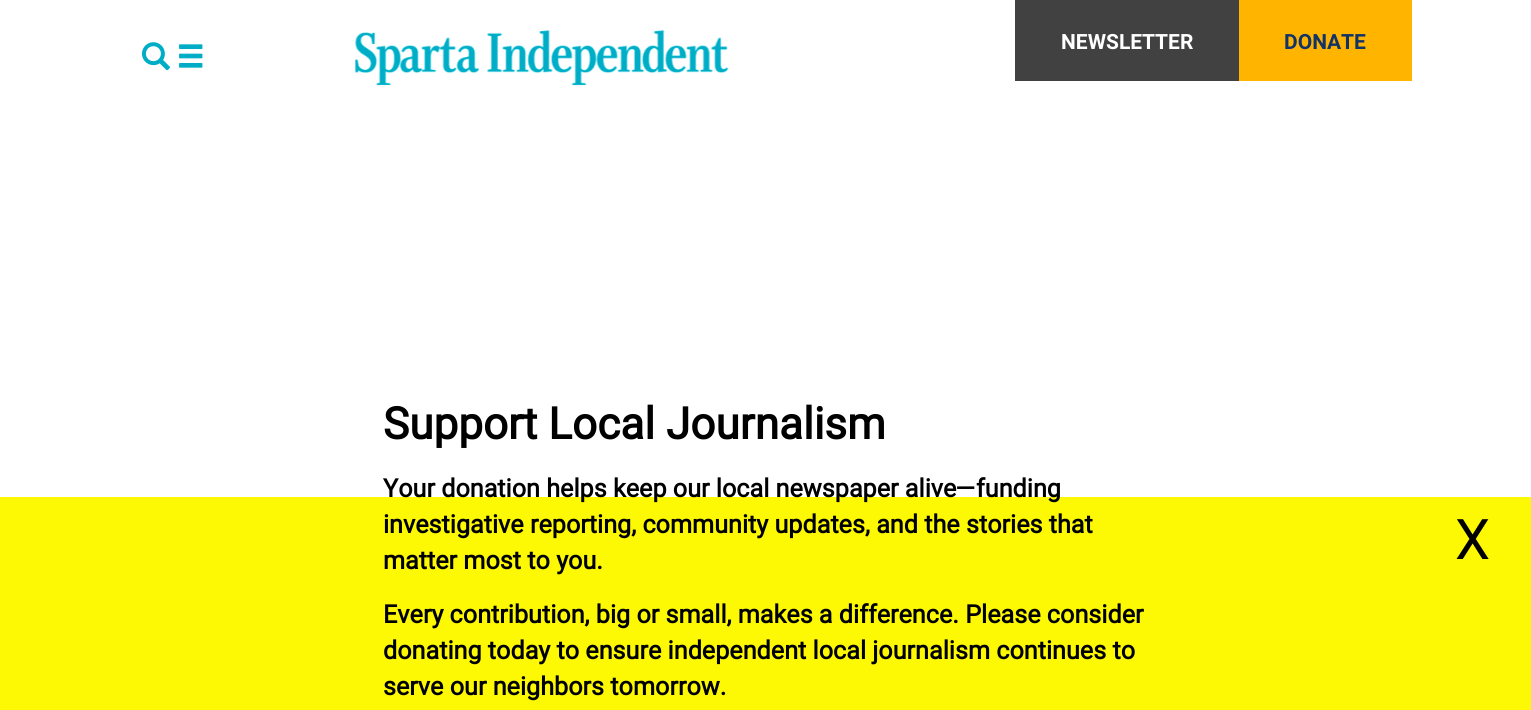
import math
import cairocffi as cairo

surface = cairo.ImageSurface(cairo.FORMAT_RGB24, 1531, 710)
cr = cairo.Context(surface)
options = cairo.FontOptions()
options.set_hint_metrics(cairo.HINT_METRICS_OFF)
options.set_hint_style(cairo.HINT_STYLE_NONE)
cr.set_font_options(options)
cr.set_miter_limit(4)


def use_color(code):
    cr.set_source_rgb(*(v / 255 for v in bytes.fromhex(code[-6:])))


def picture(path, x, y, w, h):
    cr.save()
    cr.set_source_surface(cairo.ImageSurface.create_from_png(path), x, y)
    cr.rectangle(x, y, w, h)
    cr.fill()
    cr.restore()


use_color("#ffffff")
cr.paint()
picture("img1.png", 142, 42, 61, 29)
picture("img2.png", 355, 30, 374, 56)
use_color("#414141")
cr.rectangle(1015, 0, 224, 81)
cr.fill()
cr.select_font_face("Roboto", cairo.FONT_SLANT_NORMAL, cairo.FONT_WEIGHT_BOLD)
cr.set_font_size(21)
use_color("#ffffff")
cr.move_to(1061, 49)
cr.show_text("NEWSLETTER")
use_color("#ffb400")
cr.rectangle(1239, 0, 173, 81)
cr.fill()
use_color("#133367")
cr.move_to(1284, 49)
cr.show_text("DONATE")
use_color("#fdf904")
cr.rectangle(0, 497, 1531, 213)
cr.fill()
cr.select_font_face("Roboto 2", cairo.FONT_SLANT_NORMAL, cairo.FONT_WEIGHT_BOLD)
cr.set_font_size(44.1)
use_color("#000000")
cr.move_to(383, 439)
cr.show_text("Support Local Journalism")
cr.set_font_size(25.2)
cr.move_to(383, 497)
cr.show_text("Your donation helps keep our local newspaper alive—funding")
cr.move_to(383, 533)
cr.show_text("investigative reporting, community updates, and the stories that")
cr.move_to(383, 569)
cr.show_text("matter most to you.")
cr.move_to(383, 623)
cr.show_text("Every contribution, big or small, makes a difference. Please consider")
cr.move_to(383, 659)
cr.show_text("donating today to ensure independent local journalism continues to")
cr.move_to(383, 695)
cr.show_text("serve our neighbors tomorrow.")
cr.select_font_face("Roboto")
cr.set_font_size(56)
cr.move_to(1455, 559)
cr.show_text("X")
surface.write_to_png("result.png")
